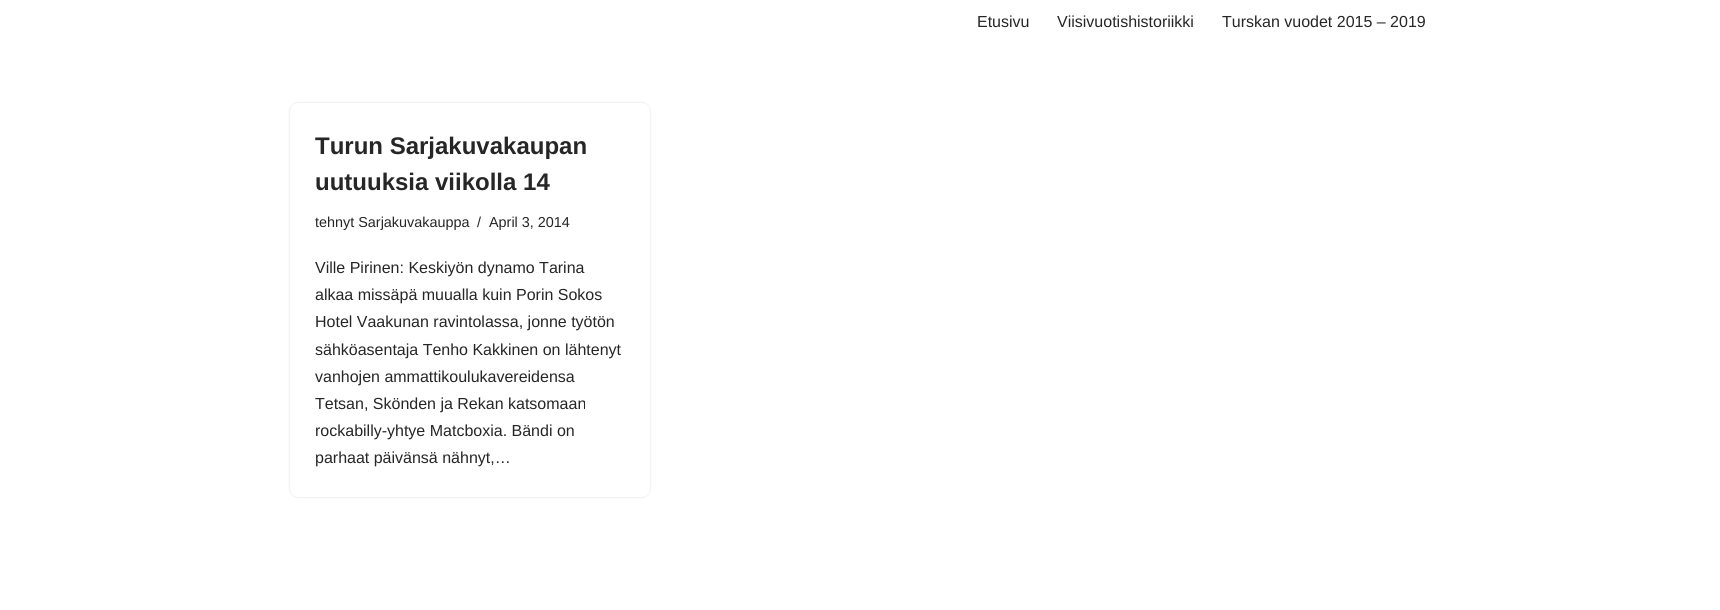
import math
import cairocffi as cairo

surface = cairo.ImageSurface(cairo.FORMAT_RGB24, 1720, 610)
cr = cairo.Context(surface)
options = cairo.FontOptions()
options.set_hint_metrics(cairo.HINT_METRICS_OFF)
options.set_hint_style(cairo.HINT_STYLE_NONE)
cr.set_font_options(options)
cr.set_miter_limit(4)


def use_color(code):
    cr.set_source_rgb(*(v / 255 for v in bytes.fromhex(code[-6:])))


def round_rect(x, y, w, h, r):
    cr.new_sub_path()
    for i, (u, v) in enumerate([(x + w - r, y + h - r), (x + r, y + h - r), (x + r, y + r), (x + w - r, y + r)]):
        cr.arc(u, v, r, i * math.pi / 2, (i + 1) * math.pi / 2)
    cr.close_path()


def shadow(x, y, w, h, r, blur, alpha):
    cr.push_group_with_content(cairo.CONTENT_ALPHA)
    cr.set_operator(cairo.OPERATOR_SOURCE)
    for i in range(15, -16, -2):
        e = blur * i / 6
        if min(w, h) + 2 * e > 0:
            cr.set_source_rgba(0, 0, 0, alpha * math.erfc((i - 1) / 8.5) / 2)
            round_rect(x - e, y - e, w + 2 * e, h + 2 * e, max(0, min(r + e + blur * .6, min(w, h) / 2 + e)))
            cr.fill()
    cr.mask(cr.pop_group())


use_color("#ffffff")
cr.paint()
cr.select_font_face("Liberation Sans")
cr.set_font_size(16)
use_color("#272626")
cr.move_to(977, 27)
cr.show_text("Etusivu")
cr.move_to(1057, 27)
cr.show_text("Viisivuotishistoriikki")
cr.move_to(1222, 27)
cr.show_text("Turskan vuodet 2015 – 2019")
use_color("#000000")
shadow(290, 103, 360, 394, 8, 1, 0.15)
use_color("#ffffff")
round_rect(290, 103, 360, 394, 8)
cr.fill()
cr.select_font_face("Liberation Sans", cairo.FONT_SLANT_NORMAL, cairo.FONT_WEIGHT_BOLD)
cr.set_font_size(24)
use_color("#272626")
cr.move_to(315, 154)
cr.show_text("Turun Sarjakuvakaupan")
cr.move_to(315, 190)
cr.show_text("uutuuksia viikolla 14")
cr.select_font_face("Liberation Sans")
cr.set_font_size(14.4)
cr.move_to(315, 227)
cr.show_text("tehnyt Sarjakuvakauppa")
cr.move_to(477, 227)
cr.show_text("/")
cr.move_to(489, 227)
cr.show_text("April 3, 2014")
cr.set_font_size(16)
cr.move_to(315, 273)
cr.show_text("Ville Pirinen: Keskiyön dynamo Tarina")
cr.move_to(315, 300)
cr.show_text("alkaa missäpä muualla kuin Porin Sokos")
cr.move_to(315, 327)
cr.show_text("Hotel Vaakunan ravintolassa, jonne työtön")
cr.move_to(315, 355)
cr.show_text("sähköasentaja Tenho Kakkinen on lähtenyt")
cr.move_to(315, 382)
cr.show_text("vanhojen ammattikoulukavereidensa")
cr.move_to(315, 409)
cr.show_text("Tetsan, Skönden ja Rekan katsomaan")
cr.move_to(315, 436)
cr.show_text("rockabilly-yhtye Matcboxia. Bändi on")
cr.move_to(315, 463)
cr.show_text("parhaat päivänsä nähnyt,…")
surface.write_to_png("result.png")
